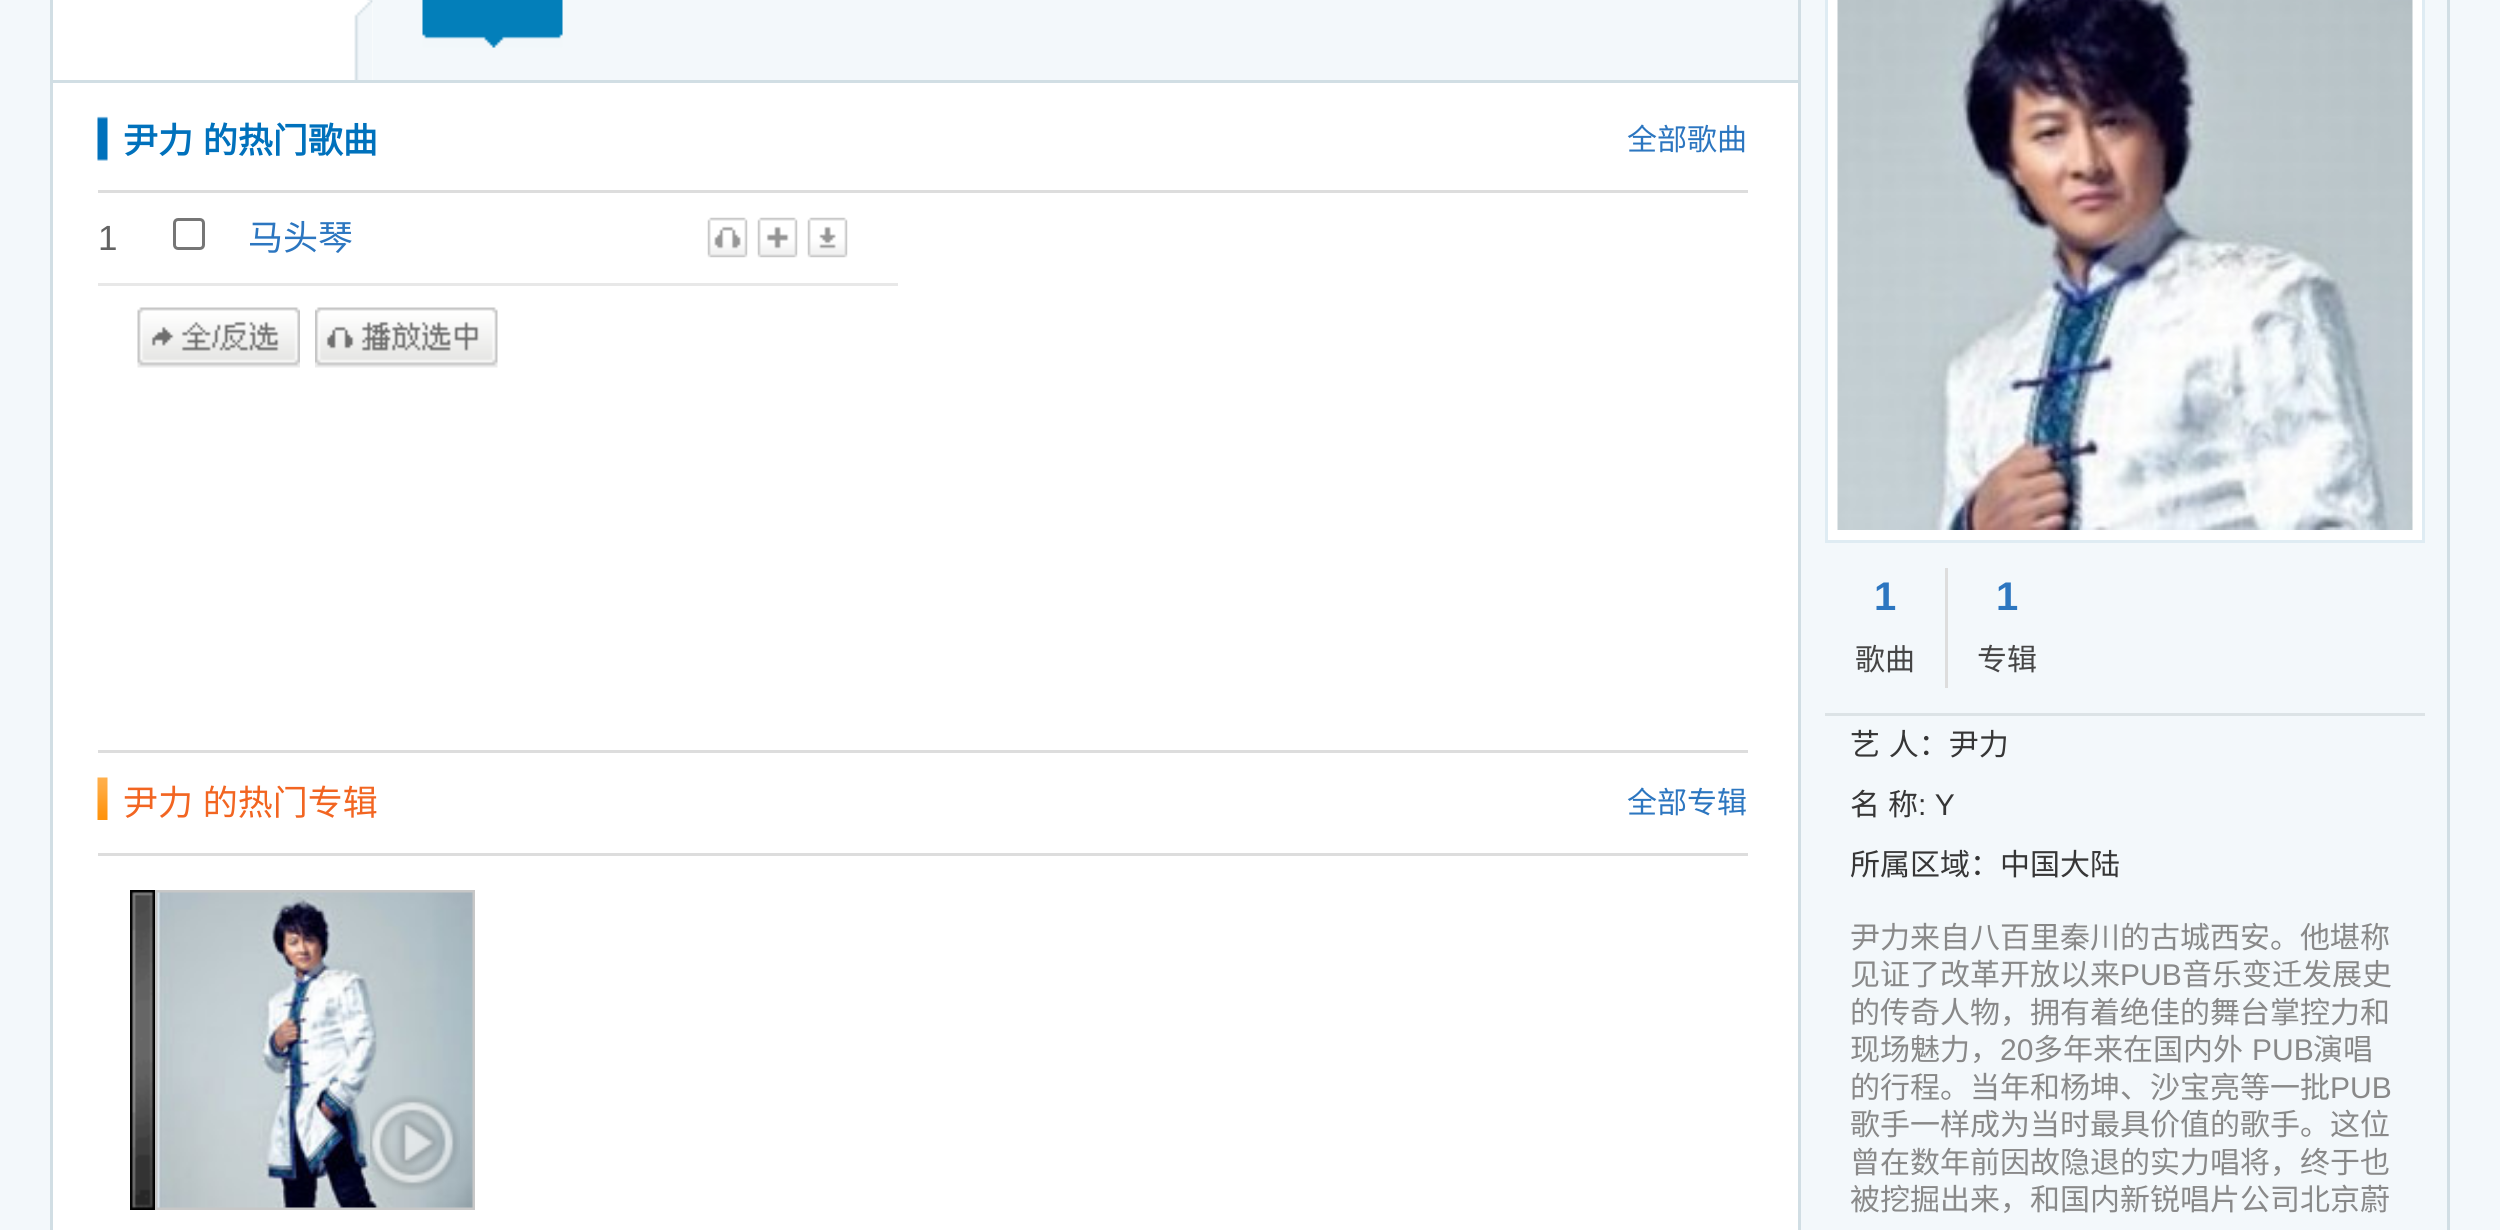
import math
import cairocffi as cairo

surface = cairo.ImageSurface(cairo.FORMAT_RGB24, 2500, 1230)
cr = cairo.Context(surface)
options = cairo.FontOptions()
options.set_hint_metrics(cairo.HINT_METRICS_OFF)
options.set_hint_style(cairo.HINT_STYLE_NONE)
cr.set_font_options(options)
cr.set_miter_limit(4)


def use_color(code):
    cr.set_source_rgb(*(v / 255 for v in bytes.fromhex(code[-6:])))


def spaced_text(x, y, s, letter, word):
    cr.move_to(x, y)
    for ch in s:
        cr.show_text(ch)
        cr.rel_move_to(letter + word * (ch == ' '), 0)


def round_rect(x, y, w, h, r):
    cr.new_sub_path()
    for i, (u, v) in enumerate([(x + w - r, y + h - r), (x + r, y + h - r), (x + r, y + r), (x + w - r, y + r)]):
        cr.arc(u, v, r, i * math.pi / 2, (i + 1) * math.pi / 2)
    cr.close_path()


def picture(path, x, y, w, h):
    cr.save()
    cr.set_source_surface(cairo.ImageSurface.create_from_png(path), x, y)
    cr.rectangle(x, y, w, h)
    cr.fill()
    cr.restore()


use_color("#f3f8fb")
cr.paint()
cr.rectangle(51.5, -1.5, 2397, 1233)
use_color("#d1dee4")
cr.set_line_width(3)
cr.stroke()
use_color("#ffffff")
cr.rectangle(53, 83, 1745, 1147)
cr.fill()
use_color("#d1dee4")
cr.rectangle(1798, 0, 3, 1230)
cr.fill()
cr.rectangle(53, 80, 1745, 3)
cr.fill()
use_color("#ffffff")
cr.rectangle(53, 0, 320, 80)
cr.fill()
picture("img1.png", 354, 0, 19, 80)
picture("img2.png", 422, 0, 141, 48)
use_color("#dddddd")
cr.rectangle(98, 190, 1650, 3)
cr.fill()
picture("img3.png", 97, 116, 11, 45)
cr.select_font_face("Noto Sans CJK SC", cairo.FONT_SLANT_NORMAL, cairo.FONT_WEIGHT_BOLD)
cr.set_font_size(35)
use_color("#0071bc")
spaced_text(123, 153, "尹力 的热门歌曲", 0, 2)
cr.select_font_face("Noto Sans CJK SC")
cr.set_font_size(30)
use_color("#2c76c0")
cr.move_to(1627, 150)
cr.show_text("全部歌曲")
use_color("#e8e8e8")
cr.rectangle(98, 283, 800, 3)
cr.fill()
cr.select_font_face("Liberation Sans")
cr.set_font_size(35)
use_color("#636363")
cr.move_to(98, 250)
cr.show_text("1")
round_rect(174.5, 219.5, 29, 29, 3.5)
use_color("#767676")
cr.stroke()
cr.select_font_face("Noto Sans CJK SC")
use_color("#2c76c0")
cr.move_to(248, 250)
cr.show_text("马头琴")
picture("img4.png", 707, 217, 41, 41)
picture("img5.png", 757, 217, 41, 41)
picture("img6.png", 807, 217, 41, 41)
picture("img7.png", 137, 307, 163, 61)
picture("img8.png", 315, 307, 183, 61)
use_color("#dddddd")
cr.rectangle(98, 750, 1650, 3)
cr.fill()
cr.rectangle(98, 853, 1650, 3)
cr.fill()
picture("img9.png", 97, 777, 11, 43)
use_color("#f26521")
spaced_text(123, 815, "尹力 的热门专辑", 0, 2)
cr.set_font_size(30)
use_color("#2c76c0")
cr.move_to(1627, 813)
cr.show_text("全部专辑")
picture("img10.png", 130, 890, 25, 320)
cr.rectangle(156.5, 891.5, 317, 317)
use_color("#c7c7c7")
cr.stroke()
picture("img11.png", 157, 892, 316, 316)
picture("img12.png", 370, 1095, 90, 95)
use_color("#ffffff")
cr.rectangle(1826.5, -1.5, 597, 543)
cr.fill_preserve()
use_color("#dfecf3")
cr.stroke()
picture("img13.png", 1837, 0, 576, 530)
cr.select_font_face("Liberation Sans", cairo.FONT_SLANT_NORMAL, cairo.FONT_WEIGHT_BOLD)
cr.set_font_size(40)
use_color("#2c76c0")
cr.move_to(1874, 610)
cr.show_text("1")
cr.select_font_face("Noto Sans CJK SC")
cr.set_font_size(30)
use_color("#464646")
cr.move_to(1855, 670)
cr.show_text("歌曲")
use_color("#dddddd")
cr.rectangle(1945, 568, 3, 120)
cr.fill()
cr.select_font_face("Liberation Sans", cairo.FONT_SLANT_NORMAL, cairo.FONT_WEIGHT_BOLD)
cr.set_font_size(40)
use_color("#2c76c0")
cr.move_to(1996, 610)
cr.show_text("1")
cr.select_font_face("Noto Sans CJK SC")
cr.set_font_size(30)
use_color("#464646")
cr.move_to(1977, 670)
cr.show_text("专辑")
use_color("#dce3e6")
cr.rectangle(1825, 713, 600, 3)
cr.fill()
use_color("#363636")
spaced_text(1850, 755, "艺 人：尹力", 0, 2)
cr.move_to(1850, 815)
cr.show_text("名")
cr.move_to(1888, 815)
cr.show_text("称")
cr.select_font_face("Liberation Sans")
cr.move_to(1918, 815)
cr.show_text(": Y")
cr.select_font_face("Noto Sans CJK SC")
cr.move_to(1850, 875)
cr.show_text("所属区域：中国大陆")
use_color("#898989")
cr.move_to(1850, 948)
cr.show_text("尹力来自八百里秦川的古城西安。他堪称")
cr.move_to(1850, 985)
cr.show_text("见证了改革开放以来")
cr.select_font_face("Liberation Sans")
cr.move_to(2120, 985)
cr.show_text("PUB")
cr.select_font_face("Noto Sans CJK SC")
cr.move_to(2182, 985)
cr.show_text("音乐变迁发展史")
cr.move_to(1850, 1023)
cr.show_text("的传奇人物，拥有着绝佳的舞台掌控力和")
cr.move_to(1850, 1060)
cr.show_text("现场魅力，")
cr.select_font_face("Liberation Sans")
cr.move_to(2000, 1060)
cr.show_text("20")
cr.select_font_face("Noto Sans CJK SC")
cr.move_to(2033, 1060)
cr.show_text("多年来在国内外")
cr.select_font_face("Liberation Sans")
cr.move_to(2252, 1060)
cr.show_text("PUB")
cr.select_font_face("Noto Sans CJK SC")
cr.move_to(2313, 1060)
cr.show_text("演唱")
cr.move_to(1850, 1098)
cr.show_text("的行程。当年和杨坤、沙宝亮等一批")
cr.select_font_face("Liberation Sans")
cr.move_to(2330, 1098)
cr.show_text("PUB")
cr.select_font_face("Noto Sans CJK SC")
cr.move_to(1850, 1135)
cr.show_text("歌手一样成为当时最具价值的歌手。这位")
cr.move_to(1850, 1173)
cr.show_text("曾在数年前因故隐退的实力唱将，终于也")
cr.move_to(1850, 1210)
cr.show_text("被挖掘出来，和国内新锐唱片公司北京蔚")
surface.write_to_png("result.png")
